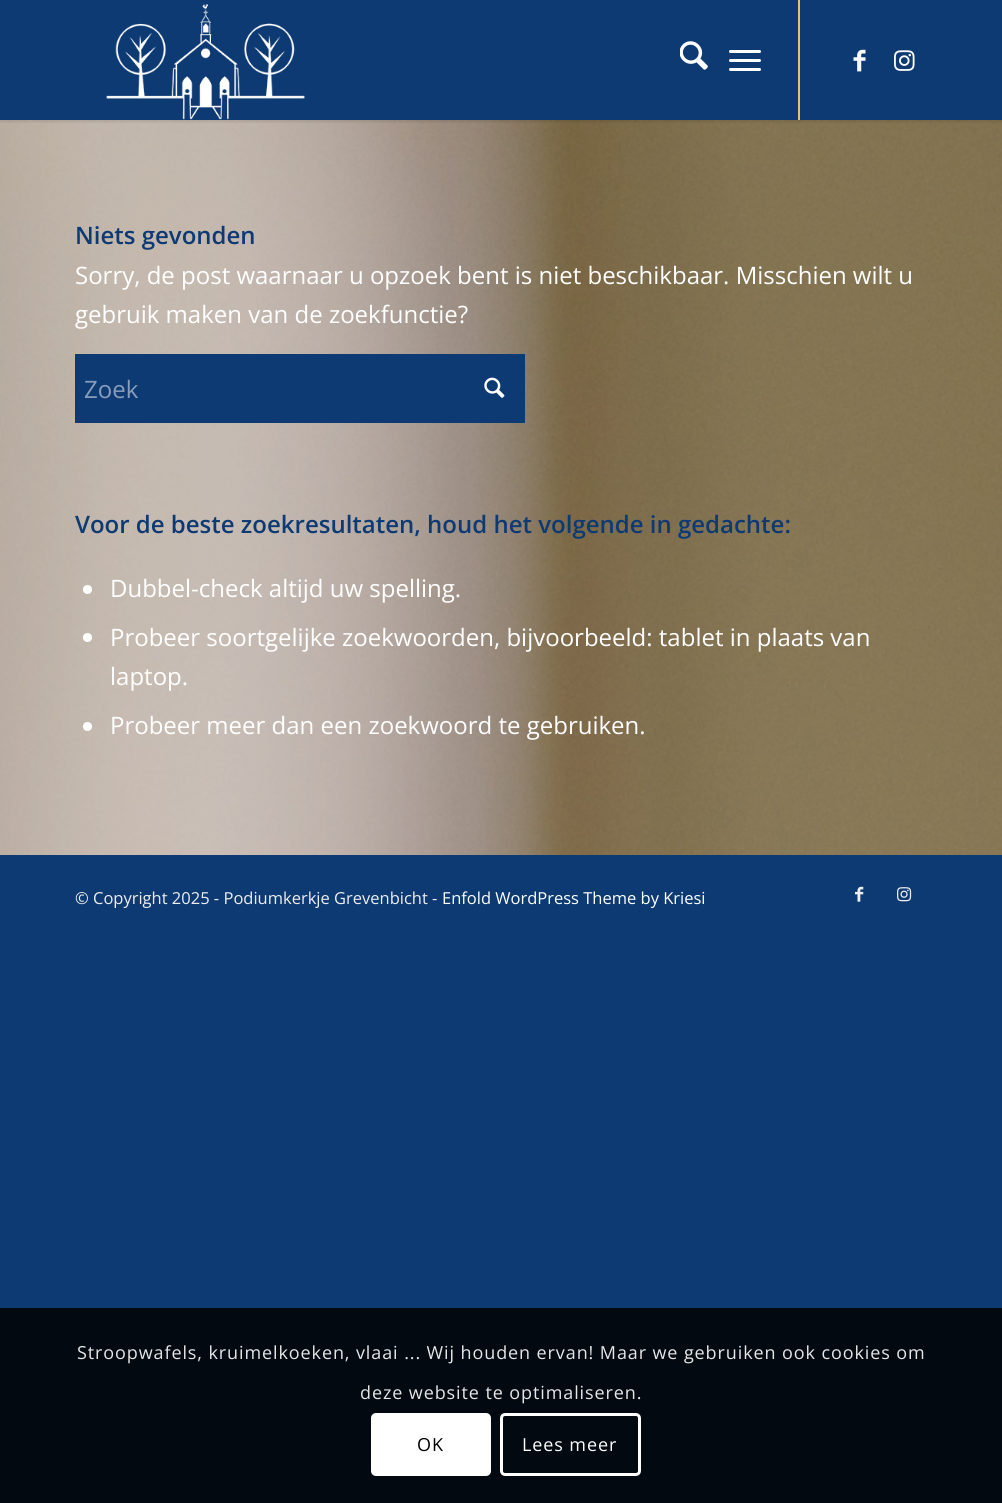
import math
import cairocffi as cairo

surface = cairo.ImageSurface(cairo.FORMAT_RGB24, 1002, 1503)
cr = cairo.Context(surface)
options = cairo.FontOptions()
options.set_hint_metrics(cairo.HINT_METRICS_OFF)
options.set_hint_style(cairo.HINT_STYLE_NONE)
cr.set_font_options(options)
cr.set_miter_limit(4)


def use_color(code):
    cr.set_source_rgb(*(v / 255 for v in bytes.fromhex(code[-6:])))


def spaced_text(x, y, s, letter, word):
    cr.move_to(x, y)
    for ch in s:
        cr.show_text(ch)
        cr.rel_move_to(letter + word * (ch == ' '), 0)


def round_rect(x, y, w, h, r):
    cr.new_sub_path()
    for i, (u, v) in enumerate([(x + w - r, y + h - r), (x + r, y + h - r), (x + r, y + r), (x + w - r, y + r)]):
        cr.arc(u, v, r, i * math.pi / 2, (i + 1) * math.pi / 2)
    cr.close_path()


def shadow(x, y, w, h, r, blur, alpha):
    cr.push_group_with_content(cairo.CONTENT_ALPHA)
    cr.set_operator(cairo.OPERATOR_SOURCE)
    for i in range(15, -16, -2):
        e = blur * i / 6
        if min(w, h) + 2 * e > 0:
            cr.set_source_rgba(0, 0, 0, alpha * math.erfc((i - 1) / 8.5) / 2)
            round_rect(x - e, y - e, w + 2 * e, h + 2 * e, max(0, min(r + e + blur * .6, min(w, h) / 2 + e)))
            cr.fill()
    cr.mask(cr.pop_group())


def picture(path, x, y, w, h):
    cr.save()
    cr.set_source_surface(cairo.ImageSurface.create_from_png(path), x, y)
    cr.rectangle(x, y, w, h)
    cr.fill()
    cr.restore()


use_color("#0e3a74")
cr.paint()
picture("img5.png", 0, 120, 1002, 735)
cr.save()
cr.rectangle(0, 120, 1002, 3)
cr.clip()
use_color("#000000")
shadow(-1, -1, 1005, 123, 0, 1.5, 0.1)
cr.restore()
picture("img1.png", 106, 4, 199, 116)
use_color("#eac369")
cr.rectangle(798, 0, 2, 120)
cr.fill()
picture("img2.png", 680, 41, 28, 29)
use_color("#ffffff")
round_rect(729, 59, 32, 3, 1.5)
cr.fill()
round_rect(729, 50, 32, 3, 1.5)
cr.fill()
round_rect(729, 68, 32, 3, 1.5)
cr.fill()
picture("img3.png", 853, 49, 13, 23)
picture("img4.png", 894, 50, 21, 21)
cr.select_font_face("Open Sans SemiBold")
cr.set_font_size(24)
use_color("#0e3a74")
cr.move_to(75, 244)
cr.show_text("Niets gevonden")
cr.select_font_face("Open Sans")
use_color("#ffffff")
cr.move_to(75, 284)
cr.show_text("Sorry, de post waarnaar u opzoek bent is niet beschikbaar. Misschien wilt u")
cr.move_to(75, 323)
cr.show_text("gebruik maken van de zoekfunctie?")
use_color("#0e3a74")
cr.rectangle(75, 354, 450, 69)
cr.fill()
use_color("#879dba")
cr.move_to(84, 398)
cr.show_text("Zoek")
picture("img6.png", 484, 377, 21, 21)
cr.select_font_face("Open Sans SemiBold")
use_color("#0e3a74")
cr.move_to(75, 533)
cr.show_text("Voor de beste zoekresultaten, houd het volgende in gedachte:")
use_color("#ffffff")
cr.new_path()
cr.arc(87.5, 589.5, 4.5, 0, 2 * math.pi)
cr.fill()
cr.select_font_face("Open Sans")
cr.move_to(110, 597)
cr.show_text("Dubbel-check altijd uw spelling.")
cr.new_path()
cr.arc(87.5, 637.5, 4.5, 0, 2 * math.pi)
cr.fill()
cr.move_to(110, 646)
cr.show_text("Probeer soortgelijke zoekwoorden, bijvoorbeeld: tablet in plaats van")
cr.move_to(110, 685)
cr.show_text("laptop.")
cr.new_path()
cr.arc(87.5, 726.5, 4.5, 0, 2 * math.pi)
cr.fill()
cr.move_to(110, 734)
cr.show_text("Probeer meer dan een zoekwoord te gebruiken.")
cr.set_font_size(16.5)
use_color("#eeeeee")
cr.move_to(75, 904)
cr.show_text("© Copyright 2025 - Podiumkerkje Grevenbicht -")
use_color("#ffffff")
cr.move_to(442, 904)
cr.show_text("Enfold WordPress Theme by Kriesi")
picture("img7.png", 855, 886, 9, 16)
picture("img8.png", 897, 887, 15, 15)
use_color("#020911")
cr.rectangle(0, 1308, 1002, 195)
cr.fill()
cr.set_font_size(18)
use_color("#e6e6e7")
spaced_text(77, 1359, "Stroopwafels, kruimelkoeken, vlaai ... Wij houden ervan! Maar we gebruiken ook cookies om", 0.9, 0)
spaced_text(360, 1399, "deze website te optimaliseren.", 0.9, 0)
use_color("#ffffff")
round_rect(371, 1413, 120, 63, 5)
cr.fill()
use_color("#000000")
spaced_text(417, 1451, "OK", 0.9, 0)
round_rect(501.5, 1414.5, 138, 60, 3.5)
use_color("#ffffff")
cr.set_line_width(3)
cr.stroke()
spaced_text(522, 1451, "Lees meer", 0.9, 0)
surface.write_to_png("result.png")
